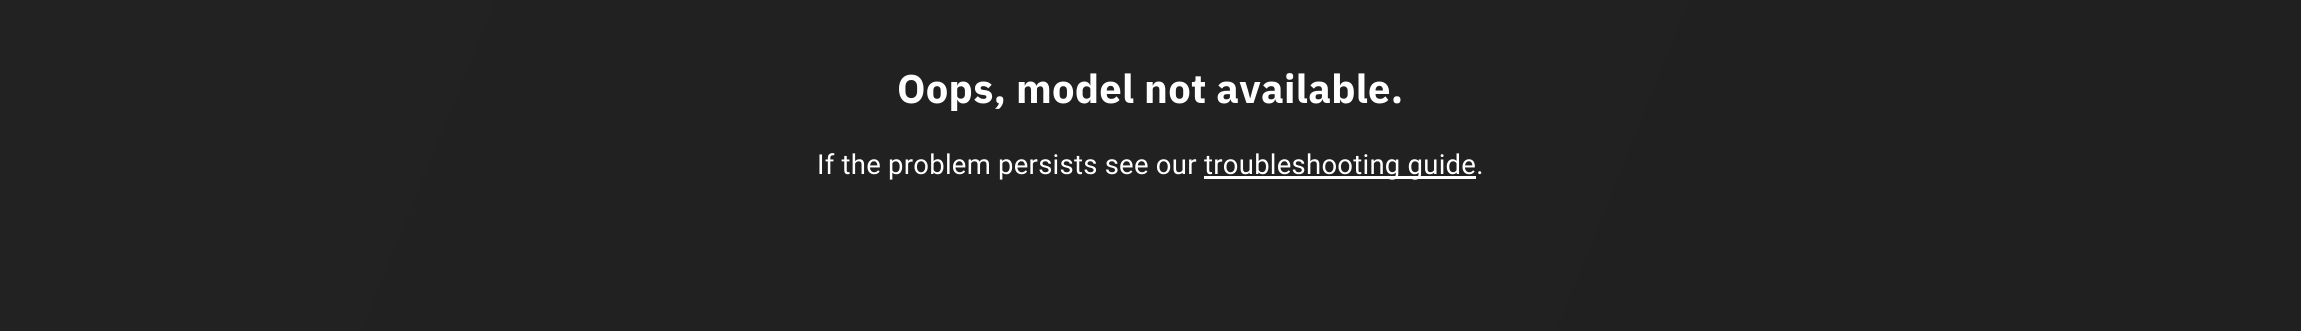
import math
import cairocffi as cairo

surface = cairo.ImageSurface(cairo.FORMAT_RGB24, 2301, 331)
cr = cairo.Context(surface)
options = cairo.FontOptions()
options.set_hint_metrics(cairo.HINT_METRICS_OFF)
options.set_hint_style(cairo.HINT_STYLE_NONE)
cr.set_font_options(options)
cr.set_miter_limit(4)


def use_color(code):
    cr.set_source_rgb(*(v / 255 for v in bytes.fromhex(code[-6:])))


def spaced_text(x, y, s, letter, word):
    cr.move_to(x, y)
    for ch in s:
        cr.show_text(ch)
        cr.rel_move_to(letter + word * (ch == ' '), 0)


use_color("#ffffff")
cr.paint()
gradient = cairo.LinearGradient(104, -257, 2197, 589)
gradient.add_color_stop_rgba(0, 0.133, 0.133, 0.133, 1)
gradient.add_color_stop_rgba(1, 0.125, 0.125, 0.125, 1)
cr.set_source(gradient)
cr.rectangle(0, 0, 2301, 331)
cr.fill()
cr.select_font_face("IBM Plex Sans", cairo.FONT_SLANT_NORMAL, cairo.FONT_WEIGHT_BOLD)
cr.set_font_size(40)
use_color("#ffffff")
spaced_text(897, 103, "Oops, model not available.", 0.25, 0)
cr.select_font_face("Roboto")
cr.set_font_size(27.5)
spaced_text(817, 174, "If the problem persists see our", 0.25, 0)
cr.rectangle(1204, 176, 272, 3)
cr.fill()
spaced_text(1204, 174, "troubleshooting guide.", 0.25, 0)
surface.write_to_png("result.png")
